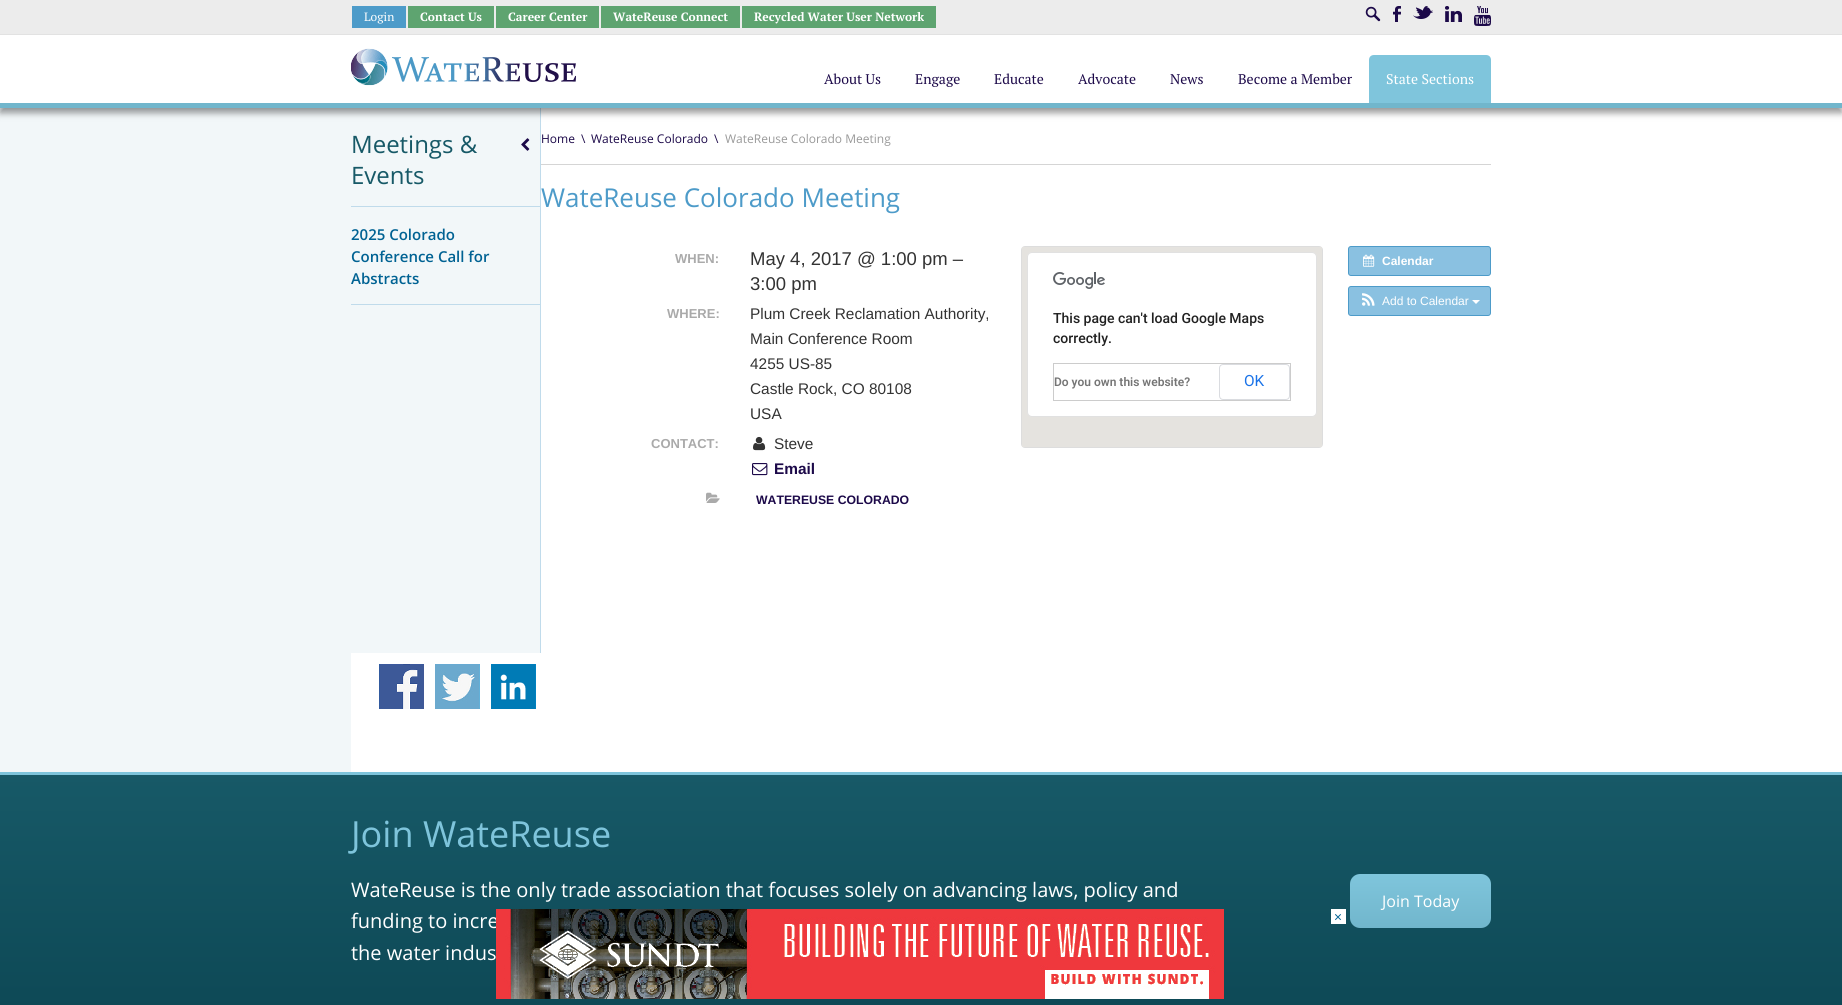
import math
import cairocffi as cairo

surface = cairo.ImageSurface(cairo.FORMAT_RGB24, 1842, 1005)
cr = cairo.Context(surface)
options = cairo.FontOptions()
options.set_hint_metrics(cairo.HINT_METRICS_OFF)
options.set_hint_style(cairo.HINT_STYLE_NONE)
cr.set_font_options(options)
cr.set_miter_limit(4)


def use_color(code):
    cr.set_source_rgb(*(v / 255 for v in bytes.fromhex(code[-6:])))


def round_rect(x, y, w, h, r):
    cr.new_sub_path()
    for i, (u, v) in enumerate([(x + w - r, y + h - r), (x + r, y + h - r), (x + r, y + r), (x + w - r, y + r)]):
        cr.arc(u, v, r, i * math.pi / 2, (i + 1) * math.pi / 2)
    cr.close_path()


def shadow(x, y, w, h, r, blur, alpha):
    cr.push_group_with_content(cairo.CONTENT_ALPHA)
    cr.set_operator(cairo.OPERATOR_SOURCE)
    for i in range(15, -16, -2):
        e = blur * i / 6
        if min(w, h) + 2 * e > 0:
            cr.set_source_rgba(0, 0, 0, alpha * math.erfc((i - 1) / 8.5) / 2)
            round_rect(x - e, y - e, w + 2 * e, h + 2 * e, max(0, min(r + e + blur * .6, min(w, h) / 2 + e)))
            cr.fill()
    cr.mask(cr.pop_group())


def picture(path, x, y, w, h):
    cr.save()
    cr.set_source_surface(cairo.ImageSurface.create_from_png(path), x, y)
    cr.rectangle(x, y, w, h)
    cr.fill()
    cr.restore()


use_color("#ffffff")
cr.paint()
gradient = cairo.LinearGradient(0, 436, 1842, 436)
gradient.add_color_stop_rgba(0, 0.949, 0.969, 0.976, 1)
gradient.add_color_stop_rgba(0.49, 0.949, 0.969, 0.976, 1)
gradient.add_color_stop_rgba(0.51, 1, 1, 1, 1)
gradient.add_color_stop_rgba(1, 1, 1, 1, 1)
cr.set_source(gradient)
cr.rectangle(0, 108, 932, 664)
cr.fill()
use_color("#ffffff")
cr.rectangle(351, 108, 581, 664)
cr.fill()
use_color("#f2f7f9")
cr.rectangle(351, 108, 189, 545)
cr.fill()
use_color("#c0dbeb")
cr.rectangle(540, 100, 1, 553)
cr.fill()
use_color("#000000")
shadow(0, 39, 1842, 74, 0, 3.5, 0.4)
use_color("#ececec")
cr.rectangle(0, 0, 1842, 34)
cr.fill()
use_color("#e2e2e2")
cr.rectangle(0, 34, 1842, 1)
cr.fill()
use_color("#4d9bc9")
cr.rectangle(352, 6, 54, 22)
cr.fill()
cr.select_font_face("PT Serif")
cr.set_font_size(12)
use_color("#ffffff")
cr.move_to(364, 21)
cr.show_text("Login")
use_color("#5ea470")
cr.rectangle(408, 6, 86, 22)
cr.fill()
cr.select_font_face("PT Serif", cairo.FONT_SLANT_NORMAL, cairo.FONT_WEIGHT_BOLD)
use_color("#ffffff")
cr.move_to(420, 21)
cr.show_text("Contact Us")
use_color("#5ea470")
cr.rectangle(496, 6, 103, 22)
cr.fill()
use_color("#ffffff")
cr.move_to(508, 21)
cr.show_text("Career Center")
use_color("#5ea470")
cr.rectangle(601, 6, 139, 22)
cr.fill()
use_color("#ffffff")
cr.move_to(613, 21)
cr.show_text("WateReuse Connect")
use_color("#5ea470")
cr.rectangle(742, 6, 194, 22)
cr.fill()
use_color("#ffffff")
cr.move_to(754, 21)
cr.show_text("Recycled Water User Network")
picture("img1.png", 1365, 6, 16, 16)
picture("img2.png", 1393, 6, 8, 16)
picture("img3.png", 1413, 6, 20, 13)
picture("img4.png", 1445, 6, 17, 16)
picture("img5.png", 1474, 6, 17, 20)
cr.rectangle(0, 35, 1842, 68)
cr.fill()
use_color("#71b6cc")
cr.rectangle(0, 103, 1842, 5)
cr.fill()
picture("img6.png", 351, 48, 225, 38)
cr.select_font_face("PT Serif")
cr.set_font_size(14)
use_color("#1c0949")
cr.move_to(824, 84)
cr.show_text("About Us")
cr.move_to(915, 84)
cr.show_text("Engage")
cr.move_to(994, 84)
cr.show_text("Educate")
cr.move_to(1078, 84)
cr.show_text("Advocate")
cr.move_to(1170, 84)
cr.show_text("News")
cr.move_to(1238, 84)
cr.show_text("Become a Member")
use_color("#7fc5dc")
cr.new_path()
cr.move_to(1374, 55)
cr.line_to(1486, 55)
cr.curve_to(1489, 55, 1491, 57, 1491, 60)
cr.line_to(1491, 103)
cr.line_to(1369, 103)
cr.line_to(1369, 60)
cr.curve_to(1369, 57, 1371, 55, 1374, 55)
cr.close_path()
cr.fill()
use_color("#ffffff")
cr.move_to(1386, 84)
cr.show_text("State Sections")
use_color("#c0dbeb")
cr.rectangle(351, 206, 189, 1)
cr.fill()
cr.select_font_face("Open Sans")
cr.set_font_size(24)
use_color("#175967")
cr.move_to(351, 153)
cr.show_text("Meetings &")
cr.move_to(351, 184)
cr.show_text("Events")
picture("img7.png", 521, 138, 9, 13)
use_color("#c0dbeb")
cr.rectangle(351, 304, 189, 1)
cr.fill()
cr.select_font_face("Open Sans SemiBold")
cr.set_font_size(15)
use_color("#006293")
cr.move_to(351, 240)
cr.show_text("2025 Colorado")
cr.move_to(351, 262)
cr.show_text("Conference Call for")
cr.move_to(351, 284)
cr.show_text("Abstracts")
cr.select_font_face("Open Sans")
cr.set_font_size(12)
use_color("#1c0949")
cr.move_to(541, 143)
cr.show_text("Home")
cr.move_to(581, 143)
cr.show_text("\\")
cr.move_to(591, 143)
cr.show_text("WateReuse Colorado")
cr.move_to(714, 143)
cr.show_text("\\")
use_color("#999999")
cr.move_to(725, 143)
cr.show_text("WateReuse Colorado Meeting")
use_color("#d5d5d5")
cr.rectangle(541, 164, 950, 1)
cr.fill()
cr.set_font_size(26)
use_color("#4d9bc9")
cr.move_to(541, 207)
cr.show_text("WateReuse Colorado Meeting")
cr.select_font_face("Liberation Sans", cairo.FONT_SLANT_NORMAL, cairo.FONT_WEIGHT_BOLD)
cr.set_font_size(13)
use_color("#aaaaaa")
cr.move_to(675, 263)
cr.show_text("WHEN:")
cr.select_font_face("Liberation Sans")
cr.set_font_size(18.5)
use_color("#333333")
cr.move_to(750, 265)
cr.show_text("May 4, 2017 @ 1:00 pm –")
cr.move_to(750, 290)
cr.show_text("3:00 pm")
cr.select_font_face("Liberation Sans", cairo.FONT_SLANT_NORMAL, cairo.FONT_WEIGHT_BOLD)
cr.set_font_size(13)
use_color("#aaaaaa")
cr.move_to(667, 318)
cr.show_text("WHERE:")
cr.select_font_face("Liberation Sans")
cr.set_font_size(15.4)
use_color("#333333")
cr.move_to(750, 319)
cr.show_text("Plum Creek Reclamation Authority,")
cr.move_to(750, 344)
cr.show_text("Main Conference Room")
cr.move_to(750, 369)
cr.show_text("4255 US-85")
cr.move_to(750, 394)
cr.show_text("Castle Rock, CO 80108")
cr.move_to(750, 419)
cr.show_text("USA")
cr.select_font_face("Liberation Sans", cairo.FONT_SLANT_NORMAL, cairo.FONT_WEIGHT_BOLD)
cr.set_font_size(13)
use_color("#aaaaaa")
cr.move_to(651, 448)
cr.show_text("CONTACT:")
picture("img8.png", 753, 436, 13, 15)
cr.select_font_face("Liberation Sans")
cr.set_font_size(15.4)
use_color("#333333")
cr.move_to(774, 449)
cr.show_text("Steve")
picture("img9.png", 752, 463, 16, 13)
cr.select_font_face("Liberation Sans", cairo.FONT_SLANT_NORMAL, cairo.FONT_WEIGHT_BOLD)
use_color("#1c0949")
cr.move_to(774, 474)
cr.show_text("Email")
picture("img10.png", 706, 492, 14, 11)
cr.set_font_size(12.25)
cr.move_to(756, 504)
cr.show_text("WATEREUSE COLORADO")
round_rect(1021.5, 246.5, 301, 201, 3.5)
use_color("#dddddd")
cr.set_line_width(1)
cr.stroke()
use_color("#e5e3df")
cr.rectangle(1022, 247, 300, 200)
cr.fill()
use_color("#ffffff")
round_rect(1027, 252, 290, 165, 5)
cr.fill()
round_rect(1027.5, 252.5, 289, 164, 4.5)
cr.set_source_rgba(0, 0, 0, 0.12)
cr.stroke()
picture("img11.png", 1053, 272, 52, 17)
cr.select_font_face("Roboto Medium")
cr.set_font_size(14)
use_color("#212121")
cr.move_to(1053, 323)
cr.show_text("This page can't load Google Maps")
cr.move_to(1053, 343)
cr.show_text("correctly.")
use_color("#cccccc")
cr.rectangle(1053, 363, 238, 1)
cr.fill()
cr.rectangle(1290, 363, 1, 38)
cr.fill()
cr.rectangle(1053, 400, 238, 1)
cr.fill()
cr.rectangle(1053, 363, 1, 38)
cr.fill()
cr.select_font_face("Roboto SemiBold")
cr.set_font_size(12)
use_color("#757575")
cr.move_to(1054, 386)
cr.show_text("Do you own this website?")
round_rect(1219.5, 364.5, 70, 35, 3.5)
use_color("#dadce0")
cr.stroke()
cr.select_font_face("Roboto")
cr.set_font_size(15.4)
use_color("#1a73e8")
cr.move_to(1244, 386)
cr.show_text("OK")
use_color("#8ac1e1")
round_rect(1348.5, 246.5, 142, 29, 2.5)
cr.fill_preserve()
use_color("#4d9bc9")
cr.stroke()
picture("img12.png", 1363, 254, 12, 13)
cr.select_font_face("Liberation Sans", cairo.FONT_SLANT_NORMAL, cairo.FONT_WEIGHT_BOLD)
cr.set_font_size(12)
use_color("#ffffff")
cr.move_to(1382, 265)
cr.show_text("Calendar")
use_color("#8ac1e1")
round_rect(1348.5, 286.5, 142, 29, 2.5)
cr.fill_preserve()
use_color("#4d9bc9")
cr.stroke()
picture("img13.png", 1362, 293, 13, 13)
cr.select_font_face("Liberation Sans")
use_color("#ffffff")
cr.move_to(1382, 305)
cr.show_text("Add to Calendar")
cr.new_path()
cr.move_to(1472, 300)
cr.line_to(1480, 300)
cr.line_to(1476, 304)
cr.close_path()
cr.fill()
picture("img14.png", 379, 664, 45, 45)
picture("img15.png", 435, 664, 45, 45)
picture("img16.png", 491, 664, 45, 45)
gradient = cairo.LinearGradient(921, 775, 921, 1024)
gradient.add_color_stop_rgba(0, 0.09, 0.349, 0.404, 1)
gradient.add_color_stop_rgba(1, 0.051, 0.282, 0.333, 1)
cr.set_source(gradient)
cr.rectangle(0, 775, 1842, 230)
cr.fill()
use_color("#7ec4db")
cr.rectangle(0, 772, 1842, 3)
cr.fill()
cr.select_font_face("Open Sans")
cr.set_font_size(36)
cr.move_to(351, 847)
cr.show_text("Join WateReuse")
cr.set_font_size(20)
use_color("#ffffff")
cr.move_to(351, 897)
cr.show_text("WateReuse is the only trade association that focuses solely on advancing laws, policy and")
cr.move_to(351, 928)
cr.show_text("funding to incre")
cr.move_to(351, 960)
cr.show_text("the water indus")
gradient = cairo.LinearGradient(1421, 874, 1421, 928)
gradient.add_color_stop_rgba(0, 0.498, 0.773, 0.863, 1)
gradient.add_color_stop_rgba(1, 0.443, 0.714, 0.8, 1)
cr.set_source(gradient)
round_rect(1350, 874, 141, 54, 10)
cr.fill()
cr.set_font_size(16)
use_color("#ffffff")
cr.move_to(1382, 907)
cr.show_text("Join Today")
picture("img17.png", 496, 909, 728, 90)
cr.rectangle(1331, 909, 15, 15)
cr.fill()
cr.set_font_size(14)
use_color("#006293")
cr.move_to(1334, 922)
cr.show_text("×")
surface.write_to_png("result.png")
